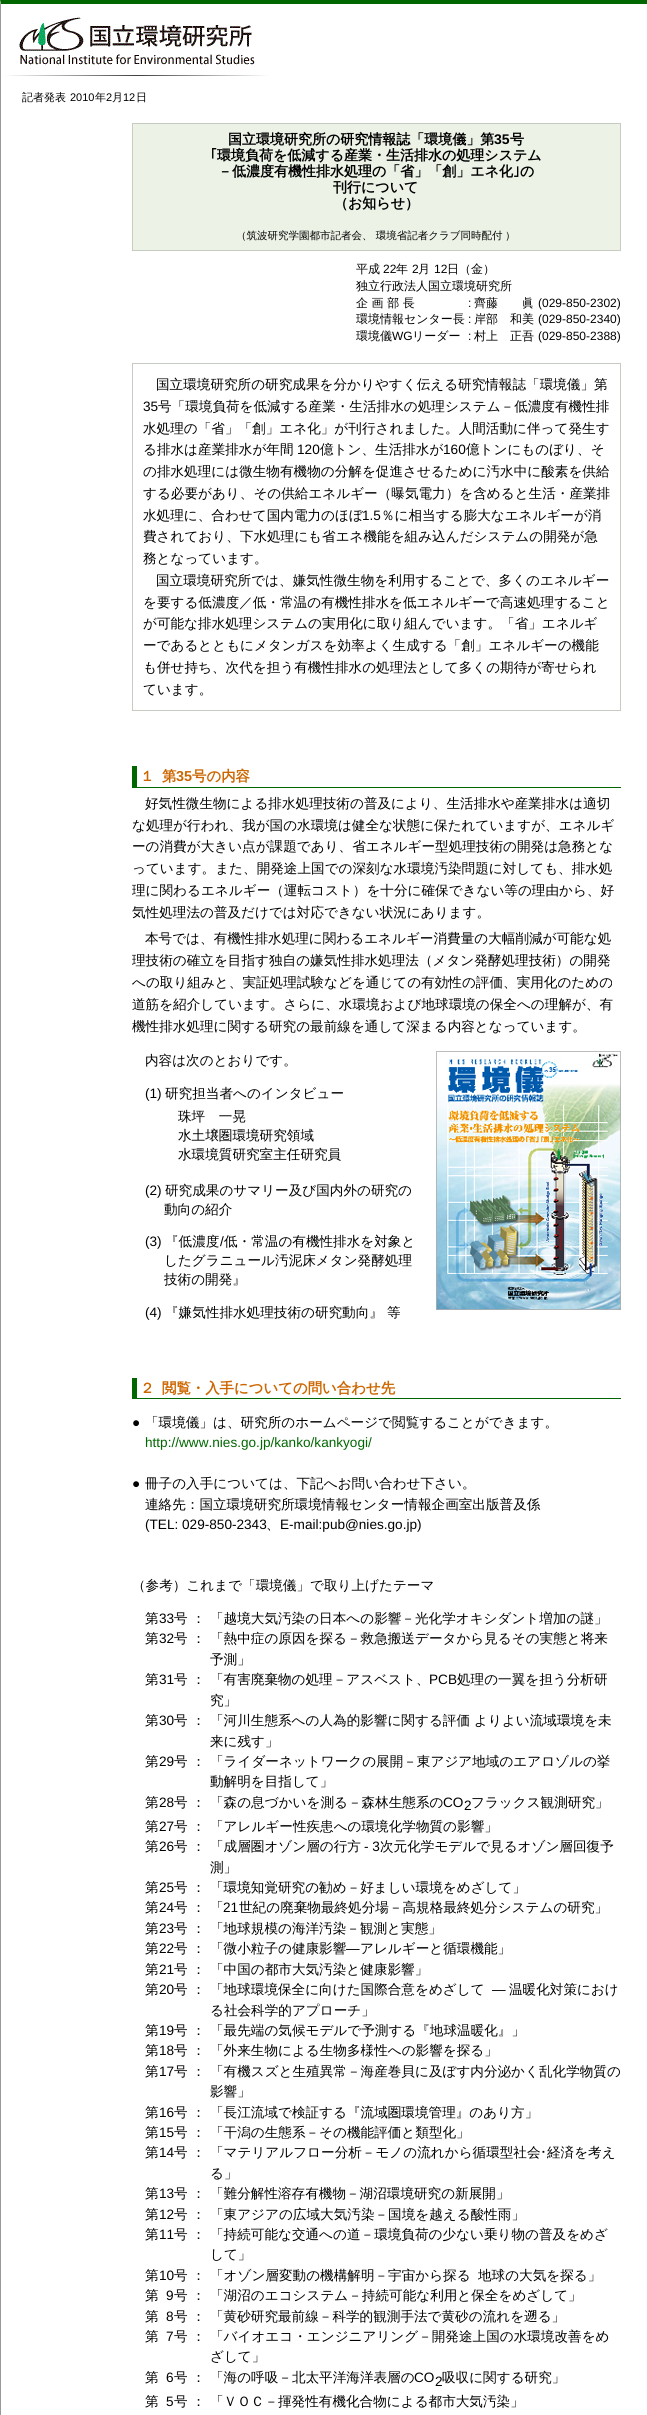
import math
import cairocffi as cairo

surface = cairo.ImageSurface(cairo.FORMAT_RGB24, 647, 2415)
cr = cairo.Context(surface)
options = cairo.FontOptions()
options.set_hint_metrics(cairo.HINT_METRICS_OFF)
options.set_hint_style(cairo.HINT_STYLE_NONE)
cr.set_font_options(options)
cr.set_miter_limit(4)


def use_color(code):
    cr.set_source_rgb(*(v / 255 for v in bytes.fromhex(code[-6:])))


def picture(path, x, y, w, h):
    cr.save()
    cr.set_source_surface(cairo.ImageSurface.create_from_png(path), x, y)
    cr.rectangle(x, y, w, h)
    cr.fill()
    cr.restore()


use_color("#ffffff")
cr.paint()
use_color("#006600")
cr.new_path()
cr.move_to(0, 0)
cr.line_to(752, 0)
cr.line_to(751, 4)
cr.line_to(1, 4)
cr.close_path()
cr.fill()
use_color("#999999")
cr.new_path()
cr.move_to(0, 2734)
cr.line_to(0, 0)
cr.line_to(1, 4)
cr.line_to(1, 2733)
cr.close_path()
cr.fill()
picture("img1.png", 19, 17, 236, 48)
gradient = cairo.LinearGradient(4, 76, 270, 75)
gradient.add_color_stop_rgba(0, 1, 1, 1, 1)
gradient.add_color_stop_rgba(0.5, 0.251, 0.251, 0.251, 1)
gradient.add_color_stop_rgba(1, 1, 1, 1, 1)
cr.set_source(gradient)
cr.rectangle(4, 75, 266, 1)
cr.fill()
cr.select_font_face("WenQuanYi Zen Hei Medium")
cr.set_font_size(11)
use_color("#000000")
cr.move_to(22, 101)
cr.show_text("記者発表")
cr.select_font_face("Liberation Sans")
cr.move_to(70, 101)
cr.show_text("2010")
cr.select_font_face("WenQuanYi Zen Hei Medium")
cr.move_to(95, 101)
cr.show_text("年")
cr.select_font_face("Liberation Sans")
cr.move_to(106, 101)
cr.show_text("2")
cr.select_font_face("WenQuanYi Zen Hei Medium")
cr.move_to(112, 101)
cr.show_text("月")
cr.select_font_face("Liberation Sans")
cr.move_to(123, 101)
cr.show_text("12")
cr.select_font_face("WenQuanYi Zen Hei Medium")
cr.move_to(136, 101)
cr.show_text("日")
use_color("#ecf2e6")
cr.rectangle(132.5, 123.5, 488, 127)
cr.fill_preserve()
use_color("#c7ccc2")
cr.set_line_width(1)
cr.stroke()
cr.select_font_face("WenQuanYi Zen Hei", cairo.FONT_SLANT_NORMAL, cairo.FONT_WEIGHT_BOLD)
cr.set_font_size(14)
use_color("#000000")
cr.move_to(228, 144)
cr.show_text("国立環境研究所の研究情報誌「環境儀」第")
cr.select_font_face("Liberation Sans", cairo.FONT_SLANT_NORMAL, cairo.FONT_WEIGHT_BOLD)
cr.move_to(494, 144)
cr.show_text("35")
cr.select_font_face("WenQuanYi Zen Hei", cairo.FONT_SLANT_NORMAL, cairo.FONT_WEIGHT_BOLD)
cr.move_to(510, 144)
cr.show_text("号")
cr.select_font_face("IPAPGothic", cairo.FONT_SLANT_NORMAL, cairo.FONT_WEIGHT_BOLD)
cr.move_to(210, 160)
cr.show_text("｢")
cr.select_font_face("WenQuanYi Zen Hei", cairo.FONT_SLANT_NORMAL, cairo.FONT_WEIGHT_BOLD)
cr.move_to(217, 160)
cr.show_text("環境負荷を低減する産業・生活排水の処理システム")
cr.move_to(218, 176)
cr.show_text("－低濃度有機性排水処理の「省」「創」エネ化")
cr.select_font_face("IPAPGothic", cairo.FONT_SLANT_NORMAL, cairo.FONT_WEIGHT_BOLD)
cr.move_to(513, 176)
cr.show_text("｣")
cr.select_font_face("WenQuanYi Zen Hei", cairo.FONT_SLANT_NORMAL, cairo.FONT_WEIGHT_BOLD)
cr.move_to(520, 176)
cr.show_text("の")
cr.move_to(333, 192)
cr.show_text("刊行について")
cr.move_to(334, 208)
cr.show_text("（お知らせ）")
cr.select_font_face("WenQuanYi Zen Hei Medium")
cr.set_font_size(10.5)
cr.move_to(236, 239)
cr.show_text("（筑波研究学園都市記者会、 環境省記者クラブ同時配付")
cr.move_to(505, 239)
cr.show_text("）")
cr.set_font_size(12)
cr.move_to(356, 273)
cr.show_text("平成")
cr.select_font_face("Liberation Sans")
cr.move_to(383, 273)
cr.show_text("22")
cr.select_font_face("WenQuanYi Zen Hei Medium")
cr.move_to(396, 273)
cr.show_text("年")
cr.select_font_face("Liberation Sans")
cr.move_to(412, 273)
cr.show_text("2")
cr.select_font_face("WenQuanYi Zen Hei Medium")
cr.move_to(418, 273)
cr.show_text("月")
cr.select_font_face("Liberation Sans")
cr.move_to(434, 273)
cr.show_text("12")
cr.select_font_face("WenQuanYi Zen Hei Medium")
cr.move_to(447, 273)
cr.show_text("日（金）")
cr.move_to(356, 290)
cr.show_text("独立行政法人国立環境研究所")
cr.move_to(356, 307)
cr.show_text("企 画 部 長")
cr.select_font_face("Liberation Sans")
cr.move_to(468, 307)
cr.show_text(":")
cr.select_font_face("WenQuanYi Zen Hei Medium")
cr.move_to(474, 307)
cr.show_text("齊藤　　眞")
cr.select_font_face("Liberation Sans")
cr.move_to(538, 307)
cr.show_text("(029-850-2302)")
cr.select_font_face("WenQuanYi Zen Hei Medium")
cr.move_to(356, 323)
cr.show_text("環境情報センター長")
cr.select_font_face("Liberation Sans")
cr.move_to(468, 323)
cr.show_text(":")
cr.select_font_face("WenQuanYi Zen Hei Medium")
cr.move_to(474, 323)
cr.show_text("岸部　和美")
cr.select_font_face("Liberation Sans")
cr.move_to(538, 323)
cr.show_text("(029-850-2340)")
cr.select_font_face("WenQuanYi Zen Hei Medium")
cr.move_to(356, 340)
cr.show_text("環境儀")
cr.select_font_face("Liberation Sans")
cr.move_to(392, 340)
cr.show_text("WG")
cr.select_font_face("WenQuanYi Zen Hei Medium")
cr.move_to(412, 340)
cr.show_text("リーダー")
cr.select_font_face("Liberation Sans")
cr.move_to(468, 340)
cr.show_text(":")
cr.select_font_face("WenQuanYi Zen Hei Medium")
cr.move_to(474, 340)
cr.show_text("村上　正吾")
cr.select_font_face("Liberation Sans")
cr.move_to(538, 340)
cr.show_text("(029-850-2388)")
cr.rectangle(132.5, 363.5, 488, 347)
use_color("#c7ccc2")
cr.stroke()
cr.select_font_face("WenQuanYi Zen Hei Medium")
cr.set_font_size(13.6)
use_color("#000000")
cr.move_to(156, 389)
cr.show_text("国立環境研究所の研究成果を分かりやすく伝える研究情報誌「環境儀」第")
cr.select_font_face("Liberation Sans")
cr.move_to(143, 411)
cr.show_text("35")
cr.select_font_face("WenQuanYi Zen Hei Medium")
cr.move_to(158, 411)
cr.show_text("号「環境負荷を低減する産業・生活排水の処理システム－低濃度有機性排")
cr.move_to(143, 433)
cr.show_text("水処理の「省」「創」エネ化」が刊行されました。人間活動に伴って発生す")
cr.move_to(143, 454)
cr.show_text("る排水は産業排水が年間")
cr.select_font_face("Liberation Sans")
cr.move_to(297, 454)
cr.show_text("120")
cr.select_font_face("WenQuanYi Zen Hei Medium")
cr.move_to(320, 454)
cr.show_text("億トン、生活排水が")
cr.select_font_face("Liberation Sans")
cr.move_to(443, 454)
cr.show_text("160")
cr.select_font_face("WenQuanYi Zen Hei Medium")
cr.move_to(466, 454)
cr.show_text("億トンにものぼり、そ")
cr.move_to(143, 476)
cr.show_text("の排水処理には微生物有機物の分解を促進させるために汚水中に酸素を供給")
cr.move_to(143, 498)
cr.show_text("する必要があり、その供給エネルギー（曝気電力）を含めると生活・産業排")
cr.move_to(143, 520)
cr.show_text("水処理に、合わせて国内電力のほぼ")
cr.select_font_face("Liberation Sans")
cr.move_to(362, 520)
cr.show_text("1.5")
cr.select_font_face("WenQuanYi Zen Hei Medium")
cr.move_to(381, 520)
cr.show_text("％に相当する膨大なエネルギーが消")
cr.move_to(143, 541)
cr.show_text("費されており、下水処理にも省エネ機能を組み込んだシステムの開発が急")
cr.move_to(143, 563)
cr.show_text("務となっています。")
cr.move_to(156, 585)
cr.show_text("国立環境研究所では、嫌気性微生物を利用することで、多くのエネルギー")
cr.move_to(143, 607)
cr.show_text("を要する低濃度／低・常温の有機性排水を低エネルギーで高速処理すること")
cr.move_to(143, 628)
cr.show_text("が可能な排水処理システムの実用化に取り組んでいます。「省」エネルギ")
cr.move_to(143, 650)
cr.show_text("ーであるとともにメタンガスを効率よく生成する「創」エネルギーの機能")
cr.move_to(143, 672)
cr.show_text("も併せ持ち、次代を担う有機性排水の処理法として多くの期待が寄せられ")
cr.move_to(143, 694)
cr.show_text("ています。")
use_color("#006600")
cr.rectangle(132, 787, 489, 1)
cr.fill()
cr.rectangle(132, 766, 5, 22)
cr.fill()
cr.select_font_face("WenQuanYi Zen Hei", cairo.FONT_SLANT_NORMAL, cairo.FONT_WEIGHT_BOLD)
cr.set_font_size(14.4)
use_color("#cc6600")
cr.move_to(140, 781)
cr.show_text("１")
cr.move_to(162, 781)
cr.show_text("第")
cr.select_font_face("Liberation Sans", cairo.FONT_SLANT_NORMAL, cairo.FONT_WEIGHT_BOLD)
cr.move_to(176, 781)
cr.show_text("35")
cr.select_font_face("WenQuanYi Zen Hei", cairo.FONT_SLANT_NORMAL, cairo.FONT_WEIGHT_BOLD)
cr.move_to(192, 781)
cr.show_text("号の内容")
cr.select_font_face("WenQuanYi Zen Hei Medium")
cr.set_font_size(13.6)
use_color("#000000")
cr.move_to(145, 808)
cr.show_text("好気性微生物による排水処理技術の普及により、生活排水や産業排水は適切")
cr.move_to(132, 830)
cr.show_text("な処理が行われ、我が国の水環境は健全な状態に保たれていますが、エネルギ")
cr.move_to(132, 851)
cr.show_text("ーの消費が大きい点が課題であり、省エネルギー型処理技術の開発は急務とな")
cr.move_to(132, 873)
cr.show_text("っています。また、開発途上国での深刻な水環境汚染問題に対しても、排水処")
cr.move_to(132, 895)
cr.show_text("理に関わるエネルギー（運転コスト）を十分に確保できない等の理由から、好")
cr.move_to(132, 917)
cr.show_text("気性処理法の普及だけでは対応できない状況にあります。")
cr.move_to(145, 943)
cr.show_text("本号では、有機性排水処理に関わるエネルギー消費量の大幅削減が可能な処")
cr.move_to(132, 965)
cr.show_text("理技術の確立を目指す独自の嫌気性排水処理法（メタン発酵処理技術）の開発")
cr.move_to(132, 987)
cr.show_text("への取り組みと、実証処理試験などを通じての有効性の評価、実用化のための")
cr.move_to(132, 1009)
cr.show_text("道筋を紹介しています。さらに、水環境および地球環境の保全への理解が、有")
cr.move_to(132, 1031)
cr.show_text("機性排水処理に関する研究の最前線を通して深まる内容となっています。")
picture("img2.png", 436, 1051, 185, 259)
cr.move_to(145, 1065)
cr.show_text("内容は次のとおりです。")
cr.select_font_face("Liberation Sans")
cr.move_to(145, 1098)
cr.show_text("(1)")
cr.select_font_face("WenQuanYi Zen Hei Medium")
cr.move_to(165, 1098)
cr.show_text("研究担当者へのインタビュー")
cr.move_to(178, 1121)
cr.show_text("珠坪　一晃")
cr.move_to(178, 1140)
cr.show_text("水土壌圏環境研究領域")
cr.move_to(178, 1159)
cr.show_text("水環境質研究室主任研究員")
cr.select_font_face("Liberation Sans")
cr.move_to(145, 1195)
cr.show_text("(2)")
cr.select_font_face("WenQuanYi Zen Hei Medium")
cr.move_to(165, 1195)
cr.show_text("研究成果のサマリー及び国内外の研究の")
cr.move_to(164, 1214)
cr.show_text("動向の紹介")
cr.select_font_face("Liberation Sans")
cr.move_to(145, 1246)
cr.show_text("(3)")
cr.select_font_face("WenQuanYi Zen Hei Medium")
cr.move_to(165, 1246)
cr.show_text("『低濃度")
cr.select_font_face("Liberation Sans")
cr.move_to(220, 1246)
cr.show_text("/")
cr.select_font_face("WenQuanYi Zen Hei Medium")
cr.move_to(224, 1246)
cr.show_text("低・常温の有機性排水を対象と")
cr.move_to(164, 1265)
cr.show_text("したグラニュール汚泥床メタン発酵処理")
cr.move_to(164, 1284)
cr.show_text("技術の開発』")
cr.select_font_face("Liberation Sans")
cr.move_to(145, 1317)
cr.show_text("(4)")
cr.select_font_face("WenQuanYi Zen Hei Medium")
cr.move_to(165, 1317)
cr.show_text("『嫌気性排水処理技術の研究動向』")
cr.move_to(387, 1317)
cr.show_text("等")
use_color("#006600")
cr.rectangle(132, 1398, 489, 1)
cr.fill()
cr.rectangle(132, 1378, 5, 21)
cr.fill()
cr.select_font_face("WenQuanYi Zen Hei", cairo.FONT_SLANT_NORMAL, cairo.FONT_WEIGHT_BOLD)
cr.set_font_size(14.4)
use_color("#cc6600")
cr.move_to(140, 1393)
cr.show_text("２")
cr.move_to(162, 1393)
cr.show_text("閲覧・入手についての問い合わせ先")
cr.select_font_face("Liberation Sans")
cr.set_font_size(13.6)
use_color("#000000")
cr.move_to(132, 1427)
cr.show_text("●")
cr.select_font_face("WenQuanYi Zen Hei Medium")
cr.move_to(145, 1427)
cr.show_text("「環境儀」は、研究所のホームページで閲覧することができます。")
cr.select_font_face("Liberation Sans")
use_color("#006600")
cr.move_to(145, 1447)
cr.show_text("http://www.nies.go.jp/kanko/kankyogi/")
use_color("#000000")
cr.move_to(132, 1488)
cr.show_text("●")
cr.select_font_face("WenQuanYi Zen Hei Medium")
cr.move_to(145, 1488)
cr.show_text("冊子の入手については、下記へお問い合わせ下さい。")
cr.move_to(145, 1509)
cr.show_text("連絡先：国立環境研究所環境情報センター情報企画室出版普及係")
cr.select_font_face("Liberation Sans")
cr.move_to(145, 1529)
cr.show_text("(TEL: 029-850-2343")
cr.select_font_face("WenQuanYi Zen Hei Medium")
cr.move_to(266, 1529)
cr.show_text("、")
cr.select_font_face("Liberation Sans")
cr.move_to(280, 1529)
cr.show_text("E-mail:pub@nies.go.jp)")
cr.select_font_face("WenQuanYi Zen Hei Medium")
cr.move_to(132, 1590)
cr.show_text("（参考）これまで「環境儀」で取り上げたテーマ")
cr.move_to(145, 1623)
cr.show_text("第")
cr.select_font_face("Liberation Sans")
cr.move_to(159, 1623)
cr.show_text("33")
cr.select_font_face("WenQuanYi Zen Hei Medium")
cr.move_to(174, 1623)
cr.show_text("号 ：")
cr.move_to(210, 1623)
cr.show_text("「越境大気汚染の日本への影響－光化学オキシダント増加の謎」")
cr.move_to(145, 1643)
cr.show_text("第")
cr.select_font_face("Liberation Sans")
cr.move_to(159, 1643)
cr.show_text("32")
cr.select_font_face("WenQuanYi Zen Hei Medium")
cr.move_to(174, 1643)
cr.show_text("号 ：")
cr.move_to(210, 1643)
cr.show_text("「熱中症の原因を探る－救急搬送データから見るその実態と将来")
cr.move_to(210, 1664)
cr.show_text("予測」")
cr.move_to(145, 1684)
cr.show_text("第")
cr.select_font_face("Liberation Sans")
cr.move_to(159, 1684)
cr.show_text("31")
cr.select_font_face("WenQuanYi Zen Hei Medium")
cr.move_to(174, 1684)
cr.show_text("号 ：")
cr.move_to(210, 1684)
cr.show_text("「有害廃棄物の処理－アスベスト、")
cr.select_font_face("Liberation Sans")
cr.move_to(429, 1684)
cr.show_text("PCB")
cr.select_font_face("WenQuanYi Zen Hei Medium")
cr.move_to(457, 1684)
cr.show_text("処理の一翼を担う分析研")
cr.move_to(210, 1705)
cr.show_text("究」")
cr.move_to(145, 1725)
cr.show_text("第")
cr.select_font_face("Liberation Sans")
cr.move_to(159, 1725)
cr.show_text("30")
cr.select_font_face("WenQuanYi Zen Hei Medium")
cr.move_to(174, 1725)
cr.show_text("号 ：")
cr.move_to(210, 1725)
cr.show_text("「河川生態系への人為的影響に関する評価 よりよい流域環境を未")
cr.move_to(210, 1746)
cr.show_text("来に残す」")
cr.move_to(145, 1766)
cr.show_text("第")
cr.select_font_face("Liberation Sans")
cr.move_to(159, 1766)
cr.show_text("29")
cr.select_font_face("WenQuanYi Zen Hei Medium")
cr.move_to(174, 1766)
cr.show_text("号 ：")
cr.move_to(210, 1766)
cr.show_text("「ライダーネットワークの展開－東アジア地域のエアロゾルの挙")
cr.move_to(210, 1786)
cr.show_text("動解明を目指して」")
cr.move_to(145, 1807)
cr.show_text("第")
cr.select_font_face("Liberation Sans")
cr.move_to(159, 1807)
cr.show_text("28")
cr.select_font_face("WenQuanYi Zen Hei Medium")
cr.move_to(174, 1807)
cr.show_text("号 ：")
cr.move_to(210, 1807)
cr.show_text("「森の息づかいを測る－森林生態系の")
cr.select_font_face("Liberation Sans")
cr.move_to(443, 1807)
cr.show_text("CO")
cr.move_to(464, 1810)
cr.show_text("2")
cr.select_font_face("WenQuanYi Zen Hei Medium")
cr.move_to(471, 1807)
cr.show_text("フラックス観測研究」")
cr.move_to(145, 1831)
cr.show_text("第")
cr.select_font_face("Liberation Sans")
cr.move_to(159, 1831)
cr.show_text("27")
cr.select_font_face("WenQuanYi Zen Hei Medium")
cr.move_to(174, 1831)
cr.show_text("号 ：")
cr.move_to(210, 1831)
cr.show_text("「アレルギー性疾患への環境化学物質の影響」")
cr.move_to(145, 1851)
cr.show_text("第")
cr.select_font_face("Liberation Sans")
cr.move_to(159, 1851)
cr.show_text("26")
cr.select_font_face("WenQuanYi Zen Hei Medium")
cr.move_to(174, 1851)
cr.show_text("号 ：")
cr.move_to(210, 1851)
cr.show_text("「成層圏オゾン層の行方")
cr.select_font_face("Liberation Sans")
cr.move_to(364, 1851)
cr.show_text("- 3")
cr.select_font_face("WenQuanYi Zen Hei Medium")
cr.move_to(380, 1851)
cr.show_text("次元化学モデルで見るオゾン層回復予")
cr.move_to(210, 1872)
cr.show_text("測」")
cr.move_to(145, 1892)
cr.show_text("第")
cr.select_font_face("Liberation Sans")
cr.move_to(159, 1892)
cr.show_text("25")
cr.select_font_face("WenQuanYi Zen Hei Medium")
cr.move_to(174, 1892)
cr.show_text("号 ：")
cr.move_to(210, 1892)
cr.show_text("「環境知覚研究の勧め－好ましい環境をめざして」")
cr.move_to(145, 1912)
cr.show_text("第")
cr.select_font_face("Liberation Sans")
cr.move_to(159, 1912)
cr.show_text("24")
cr.select_font_face("WenQuanYi Zen Hei Medium")
cr.move_to(174, 1912)
cr.show_text("号 ：")
cr.move_to(210, 1912)
cr.show_text("「")
cr.select_font_face("Liberation Sans")
cr.move_to(223, 1912)
cr.show_text("21")
cr.select_font_face("WenQuanYi Zen Hei Medium")
cr.move_to(239, 1912)
cr.show_text("世紀の廃棄物最終処分場－高規格最終処分システムの研究」")
cr.move_to(145, 1933)
cr.show_text("第")
cr.select_font_face("Liberation Sans")
cr.move_to(159, 1933)
cr.show_text("23")
cr.select_font_face("WenQuanYi Zen Hei Medium")
cr.move_to(174, 1933)
cr.show_text("号 ：")
cr.move_to(210, 1933)
cr.show_text("「地球規模の海洋汚染－観測と実態」")
cr.move_to(145, 1953)
cr.show_text("第")
cr.select_font_face("Liberation Sans")
cr.move_to(159, 1953)
cr.show_text("22")
cr.select_font_face("WenQuanYi Zen Hei Medium")
cr.move_to(174, 1953)
cr.show_text("号 ：")
cr.move_to(210, 1953)
cr.show_text("「微小粒子の健康影響")
cr.select_font_face("Liberation Sans")
cr.move_to(346, 1953)
cr.show_text("―")
cr.select_font_face("WenQuanYi Zen Hei Medium")
cr.move_to(360, 1953)
cr.show_text("アレルギーと循環機能」")
cr.move_to(145, 1974)
cr.show_text("第")
cr.select_font_face("Liberation Sans")
cr.move_to(159, 1974)
cr.show_text("21")
cr.select_font_face("WenQuanYi Zen Hei Medium")
cr.move_to(174, 1974)
cr.show_text("号 ：")
cr.move_to(210, 1974)
cr.show_text("「中国の都市大気汚染と健康影響」")
cr.move_to(145, 1994)
cr.show_text("第")
cr.select_font_face("Liberation Sans")
cr.move_to(159, 1994)
cr.show_text("20")
cr.select_font_face("WenQuanYi Zen Hei Medium")
cr.move_to(174, 1994)
cr.show_text("号 ：")
cr.move_to(210, 1994)
cr.show_text("「地球環境保全に向けた国際合意をめざして")
cr.select_font_face("Liberation Sans")
cr.move_to(492, 1994)
cr.show_text("―")
cr.select_font_face("WenQuanYi Zen Hei Medium")
cr.move_to(509, 1994)
cr.show_text("温暖化対策におけ")
cr.move_to(210, 2015)
cr.show_text("る社会科学的アプローチ」")
cr.move_to(145, 2035)
cr.show_text("第")
cr.select_font_face("Liberation Sans")
cr.move_to(159, 2035)
cr.show_text("19")
cr.select_font_face("WenQuanYi Zen Hei Medium")
cr.move_to(174, 2035)
cr.show_text("号 ：")
cr.move_to(210, 2035)
cr.show_text("「最先端の気候モデルで予測する『地球温暖化』」")
cr.move_to(145, 2055)
cr.show_text("第")
cr.select_font_face("Liberation Sans")
cr.move_to(159, 2055)
cr.show_text("18")
cr.select_font_face("WenQuanYi Zen Hei Medium")
cr.move_to(174, 2055)
cr.show_text("号 ：")
cr.move_to(210, 2055)
cr.show_text("「外来生物による生物多様性への影響を探る」")
cr.move_to(145, 2076)
cr.show_text("第")
cr.select_font_face("Liberation Sans")
cr.move_to(159, 2076)
cr.show_text("17")
cr.select_font_face("WenQuanYi Zen Hei Medium")
cr.move_to(174, 2076)
cr.show_text("号 ：")
cr.move_to(210, 2076)
cr.show_text("「有機スズと生殖異常－海産巻貝に及ぼす内分泌かく乱化学物質の")
cr.move_to(210, 2096)
cr.show_text("影響」")
cr.move_to(145, 2117)
cr.show_text("第")
cr.select_font_face("Liberation Sans")
cr.move_to(159, 2117)
cr.show_text("16")
cr.select_font_face("WenQuanYi Zen Hei Medium")
cr.move_to(174, 2117)
cr.show_text("号 ：")
cr.move_to(210, 2117)
cr.show_text("「長江流域で検証する『流域圏環境管理』のあり方」")
cr.move_to(145, 2137)
cr.show_text("第")
cr.select_font_face("Liberation Sans")
cr.move_to(159, 2137)
cr.show_text("15")
cr.select_font_face("WenQuanYi Zen Hei Medium")
cr.move_to(174, 2137)
cr.show_text("号 ：")
cr.move_to(210, 2137)
cr.show_text("「干潟の生態系－その機能評価と類型化」")
cr.move_to(145, 2157)
cr.show_text("第")
cr.select_font_face("Liberation Sans")
cr.move_to(159, 2157)
cr.show_text("14")
cr.select_font_face("WenQuanYi Zen Hei Medium")
cr.move_to(174, 2157)
cr.show_text("号 ：")
cr.move_to(210, 2157)
cr.show_text("「マテリアルフロー分析－モノの流れから循環型社会")
cr.select_font_face("IPAPGothic")
cr.move_to(540, 2157)
cr.show_text("･")
cr.select_font_face("WenQuanYi Zen Hei Medium")
cr.move_to(547, 2157)
cr.show_text("経済を考え")
cr.move_to(210, 2178)
cr.show_text("る」")
cr.move_to(145, 2198)
cr.show_text("第")
cr.select_font_face("Liberation Sans")
cr.move_to(159, 2198)
cr.show_text("13")
cr.select_font_face("WenQuanYi Zen Hei Medium")
cr.move_to(174, 2198)
cr.show_text("号 ：")
cr.move_to(210, 2198)
cr.show_text("「難分解性溶存有機物－湖沼環境研究の新展開」")
cr.move_to(145, 2219)
cr.show_text("第")
cr.select_font_face("Liberation Sans")
cr.move_to(159, 2219)
cr.show_text("12")
cr.select_font_face("WenQuanYi Zen Hei Medium")
cr.move_to(174, 2219)
cr.show_text("号 ：")
cr.move_to(210, 2219)
cr.show_text("「東アジアの広域大気汚染－国境を越える酸性雨」")
cr.move_to(145, 2239)
cr.show_text("第")
cr.select_font_face("Liberation Sans")
cr.move_to(159, 2239)
cr.show_text("11")
cr.select_font_face("WenQuanYi Zen Hei Medium")
cr.move_to(174, 2239)
cr.show_text("号 ：")
cr.move_to(210, 2239)
cr.show_text("「持続可能な交通への道－環境負荷の少ない乗り物の普及をめざ")
cr.move_to(210, 2259)
cr.show_text("して」")
cr.move_to(145, 2280)
cr.show_text("第")
cr.select_font_face("Liberation Sans")
cr.move_to(159, 2280)
cr.show_text("10")
cr.select_font_face("WenQuanYi Zen Hei Medium")
cr.move_to(174, 2280)
cr.show_text("号 ：")
cr.move_to(210, 2280)
cr.show_text("「オゾン層変動の機構解明－宇宙から探る")
cr.move_to(478, 2280)
cr.show_text("地球の大気を探る」")
cr.move_to(145, 2300)
cr.show_text("第")
cr.select_font_face("Liberation Sans")
cr.move_to(166, 2300)
cr.show_text("9")
cr.select_font_face("WenQuanYi Zen Hei Medium")
cr.move_to(174, 2300)
cr.show_text("号 ：")
cr.move_to(210, 2300)
cr.show_text("「湖沼のエコシステム－持続可能な利用と保全をめざして」")
cr.move_to(145, 2321)
cr.show_text("第")
cr.select_font_face("Liberation Sans")
cr.move_to(166, 2321)
cr.show_text("8")
cr.select_font_face("WenQuanYi Zen Hei Medium")
cr.move_to(174, 2321)
cr.show_text("号 ：")
cr.move_to(210, 2321)
cr.show_text("「黄砂研究最前線－科学的観測手法で黄砂の流れを遡る」")
cr.move_to(145, 2341)
cr.show_text("第")
cr.select_font_face("Liberation Sans")
cr.move_to(166, 2341)
cr.show_text("7")
cr.select_font_face("WenQuanYi Zen Hei Medium")
cr.move_to(174, 2341)
cr.show_text("号 ：")
cr.move_to(210, 2341)
cr.show_text("「バイオエコ・エンジニアリング－開発途上国の水環境改善をめ")
cr.move_to(210, 2361)
cr.show_text("ざして」")
cr.move_to(145, 2382)
cr.show_text("第")
cr.select_font_face("Liberation Sans")
cr.move_to(166, 2382)
cr.show_text("6")
cr.select_font_face("WenQuanYi Zen Hei Medium")
cr.move_to(174, 2382)
cr.show_text("号 ：")
cr.move_to(210, 2382)
cr.show_text("「海の呼吸－北太平洋海洋表層の")
cr.select_font_face("Liberation Sans")
cr.move_to(414, 2382)
cr.show_text("CO")
cr.move_to(435, 2386)
cr.show_text("2")
cr.select_font_face("WenQuanYi Zen Hei Medium")
cr.move_to(442, 2382)
cr.show_text("吸収に関する研究」")
cr.move_to(145, 2406)
cr.show_text("第")
cr.select_font_face("Liberation Sans")
cr.move_to(166, 2406)
cr.show_text("5")
cr.select_font_face("WenQuanYi Zen Hei Medium")
cr.move_to(174, 2406)
cr.show_text("号 ：")
cr.move_to(210, 2406)
cr.show_text("「ＶＯＣ－揮発性有機化合物による都市大気汚染」")
surface.write_to_png("result.png")
